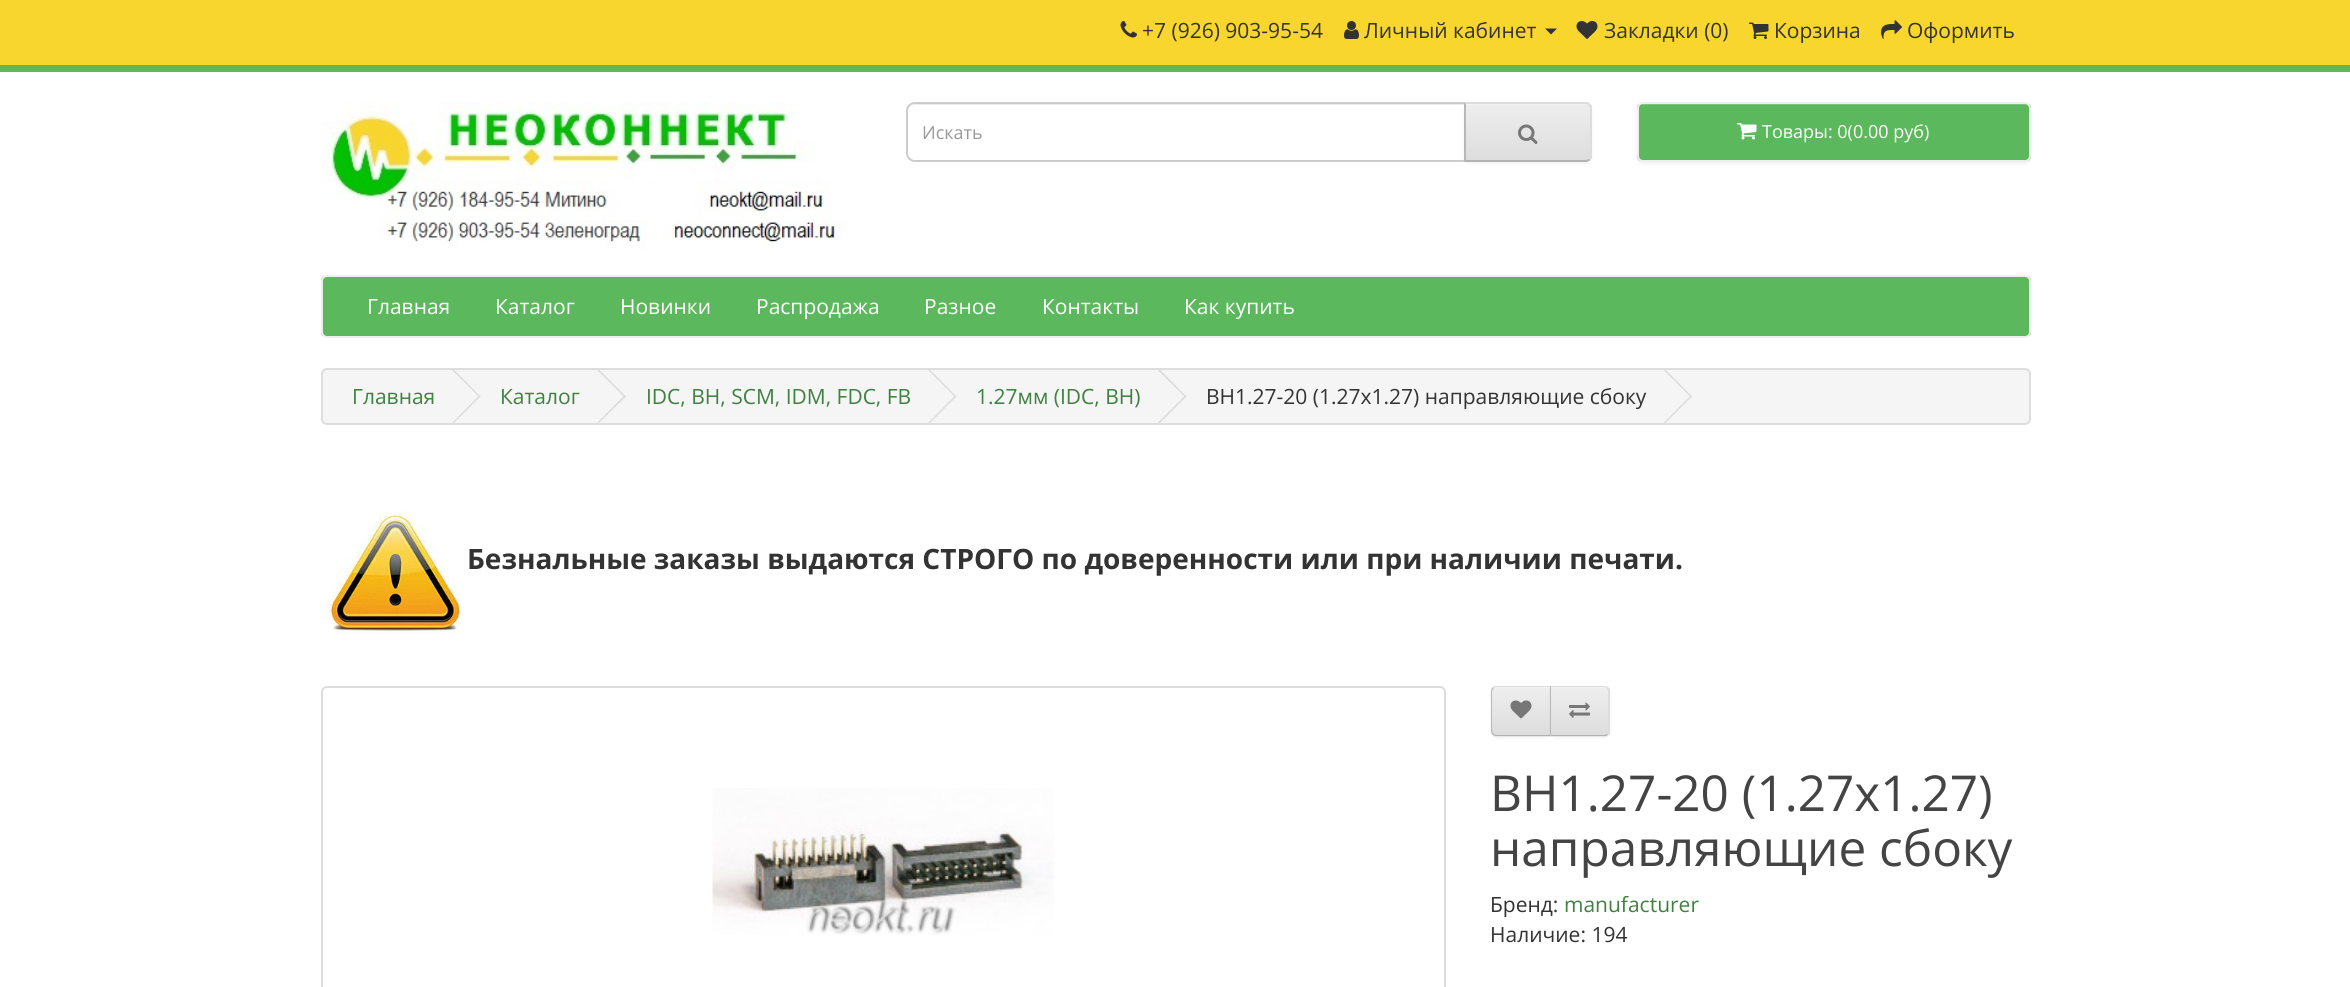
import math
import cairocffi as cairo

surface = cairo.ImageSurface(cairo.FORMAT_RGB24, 2350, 987)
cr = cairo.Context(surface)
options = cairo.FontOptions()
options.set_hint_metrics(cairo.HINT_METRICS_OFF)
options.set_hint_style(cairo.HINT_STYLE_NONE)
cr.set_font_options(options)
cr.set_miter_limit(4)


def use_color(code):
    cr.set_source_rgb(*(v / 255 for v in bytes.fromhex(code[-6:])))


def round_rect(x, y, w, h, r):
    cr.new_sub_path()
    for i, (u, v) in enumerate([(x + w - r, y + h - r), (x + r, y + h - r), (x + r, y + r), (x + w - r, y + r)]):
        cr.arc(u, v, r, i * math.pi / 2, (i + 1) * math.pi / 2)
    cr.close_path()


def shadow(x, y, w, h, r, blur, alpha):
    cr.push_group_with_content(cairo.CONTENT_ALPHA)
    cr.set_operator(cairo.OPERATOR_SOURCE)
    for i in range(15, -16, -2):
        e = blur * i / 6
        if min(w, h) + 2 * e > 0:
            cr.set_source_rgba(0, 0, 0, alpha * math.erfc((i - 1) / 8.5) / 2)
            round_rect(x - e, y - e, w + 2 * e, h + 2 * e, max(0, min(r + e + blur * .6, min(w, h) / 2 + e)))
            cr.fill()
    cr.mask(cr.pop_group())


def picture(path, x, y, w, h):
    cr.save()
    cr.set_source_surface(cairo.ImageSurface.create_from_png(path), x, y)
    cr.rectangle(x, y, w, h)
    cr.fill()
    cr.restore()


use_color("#ffffff")
cr.paint()
use_color("#f9d62e")
cr.rectangle(0, 0, 2350, 65)
cr.fill()
use_color("#5cb85c")
cr.rectangle(0, 65, 2350, 7)
cr.fill()
picture("img1.png", 1120, 21, 17, 17)
cr.select_font_face("Open Sans")
cr.set_font_size(21)
use_color("#333333")
cr.move_to(1142, 38)
cr.show_text("+7 (926) 903-95-54")
picture("img2.png", 1344, 21, 15, 18)
cr.move_to(1364, 38)
cr.show_text("Личный кабинет")
cr.new_path()
cr.move_to(1545, 28.5)
cr.line_to(1557, 28.5)
cr.line_to(1551, 34.5)
cr.close_path()
cr.fill()
picture("img3.png", 1576, 21, 22, 18)
cr.move_to(1604, 38)
cr.show_text("Закладки (0)")
picture("img4.png", 1749, 22, 20, 17)
cr.move_to(1774, 38)
cr.show_text("Корзина")
picture("img5.png", 1881, 20, 21, 19)
cr.move_to(1907, 38)
cr.show_text("Оформить")
picture("img6.png", 321, 102, 528, 148)
use_color("#ececec")
cr.new_path()
cr.move_to(915, 105)
cr.line_to(1464, 105)
cr.line_to(1464, 104)
cr.line_to(916, 104)
cr.curve_to(912, 104, 908, 108, 908, 112)
cr.curve_to(908, 108, 911, 105, 915, 105)
cr.close_path()
cr.fill()
cr.new_path()
cr.move_to(915, 103)
cr.line_to(1465, 103)
cr.line_to(1465, 161)
cr.line_to(915, 161)
cr.curve_to(910.5, 161, 907, 157.5, 907, 153)
cr.line_to(907, 111)
cr.curve_to(907, 106.5, 910.5, 103, 915, 103)
cr.close_path()
use_color("#cccccc")
cr.stroke()
cr.set_font_size(18)
use_color("#999999")
cr.move_to(922, 139)
cr.show_text("Искать")
use_color("#000000")
shadow(1464, 104, 128, 60, 6, 1.5, 0.05)
use_color("#e7e7e7")
cr.new_path()
cr.move_to(1464, 102)
cr.line_to(1586, 102)
cr.curve_to(1589.5, 102, 1592, 104.5, 1592, 108)
cr.line_to(1592, 156)
cr.curve_to(1592, 159.5, 1589.5, 162, 1586, 162)
cr.line_to(1464, 162)
cr.close_path()
cr.fill()
cr.save()
cr.new_path()
cr.move_to(1464, 102)
cr.line_to(1586, 102)
cr.curve_to(1589.5, 102, 1592, 104.5, 1592, 108)
cr.line_to(1592, 156)
cr.curve_to(1592, 159.5, 1589.5, 162, 1586, 162)
cr.line_to(1464, 162)
cr.close_path()
cr.clip()
gradient = cairo.LinearGradient(1528, 104, 1528, 161)
gradient.add_color_stop_rgba(0, 0.933, 0.933, 0.933, 1)
gradient.add_color_stop_rgba(1, 0.867, 0.867, 0.867, 1)
cr.set_source(gradient)
cr.rectangle(1465, 104, 127, 57)
cr.fill()
cr.restore()
use_color("#f1f1f1")
cr.new_path()
cr.move_to(1466, 105)
cr.line_to(1586, 105)
cr.curve_to(1588, 105, 1590, 107, 1590, 110)
cr.line_to(1590, 109)
cr.curve_to(1590, 106, 1588, 104, 1585, 104)
cr.line_to(1466, 104)
cr.close_path()
cr.fill()
use_color("#dddddd")
cr.new_path()
cr.move_to(1464, 102)
cr.line_to(1466, 104)
cr.line_to(1586, 104)
cr.line_to(1588, 105)
cr.line_to(1590, 104)
cr.curve_to(1589, 103, 1587, 102, 1586, 102)
cr.close_path()
cr.fill()
cr.new_path()
cr.move_to(1592, 158)
cr.line_to(1590, 160)
cr.line_to(1588, 159)
cr.curve_to(1589, 158, 1590, 157, 1590, 156)
cr.line_to(1590, 108)
cr.curve_to(1590, 107, 1589, 106, 1588, 105)
cr.line_to(1590, 104)
cr.line_to(1592, 106)
cr.close_path()
cr.fill()
use_color("#b3b3b3")
cr.new_path()
cr.move_to(1586, 162)
cr.curve_to(1587, 162, 1589, 161, 1590, 160)
cr.line_to(1588, 159)
cr.line_to(1586, 160)
cr.line_to(1466, 160)
cr.line_to(1464, 162)
cr.close_path()
cr.fill()
use_color("#b7b7b7")
cr.new_path()
cr.move_to(1464, 102)
cr.line_to(1464, 162)
cr.line_to(1466, 160)
cr.line_to(1466, 104)
cr.close_path()
cr.fill()
picture("img7.png", 1518, 124, 20, 20)
use_color("#000000")
shadow(1637, 104, 394, 60, 6, 1.5, 0.05)
cr.save()
round_rect(1637, 102, 394, 60, 6)
cr.clip()
use_color("#5cb85c")
cr.rectangle(1637, 104, 394, 57)
cr.fill()
cr.restore()
use_color("#7dc67d")
cr.new_path()
cr.move_to(1642, 105)
cr.line_to(2025, 105)
cr.curve_to(2027, 105, 2030, 107, 2030, 110)
cr.line_to(2030, 109)
cr.curve_to(2030, 106, 2028, 104, 2025, 104)
cr.line_to(1643, 104)
cr.curve_to(1640, 104, 1638, 106, 1638, 109)
cr.line_to(1638, 110)
cr.curve_to(1638, 107, 1640, 105, 1642, 105)
cr.close_path()
cr.fill()
round_rect(1638, 103, 392, 58, 5)
use_color("#eeeeee")
cr.stroke()
picture("img8.png", 1737, 123, 20, 17)
use_color("#ffffff")
cr.move_to(1762, 138)
cr.show_text("Товары: 0(0.00 руб)")
cr.save()
round_rect(321, 275, 1710, 63, 6)
cr.clip()
use_color("#5cb85c")
cr.rectangle(321, 276, 1710, 60)
cr.fill()
cr.restore()
round_rect(322, 276, 1708, 61, 5)
use_color("#eeeeee")
cr.stroke()
cr.set_font_size(21)
use_color("#ffffff")
cr.move_to(367, 314)
cr.show_text("Главная")
cr.move_to(495, 314)
cr.show_text("Каталог")
cr.move_to(620, 314)
cr.show_text("Новинки")
cr.move_to(756, 314)
cr.show_text("Распродажа")
cr.move_to(924, 314)
cr.show_text("Разное")
cr.move_to(1042, 314)
cr.show_text("Контакты")
cr.move_to(1184, 314)
cr.show_text("Как купить")
use_color("#f5f5f5")
round_rect(322, 369, 1708, 55, 5)
cr.fill_preserve()
use_color("#dddddd")
cr.stroke()
use_color("#408040")
cr.move_to(352, 404)
cr.show_text("Главная")
use_color("#dddddd")
cr.new_path()
cr.move_to(452, 370)
cr.line_to(453, 368.5)
cr.line_to(480.5, 396.5)
cr.line_to(479.5, 397.5)
cr.close_path()
cr.fill()
cr.new_path()
cr.move_to(452, 423)
cr.line_to(479.5, 395)
cr.line_to(480.5, 396.5)
cr.line_to(453, 424)
cr.close_path()
cr.fill()
use_color("#408040")
cr.move_to(500, 404)
cr.show_text("Каталог")
use_color("#dddddd")
cr.new_path()
cr.move_to(597, 370)
cr.line_to(598, 368.5)
cr.line_to(626, 396.5)
cr.line_to(624.5, 397.5)
cr.close_path()
cr.fill()
cr.new_path()
cr.move_to(597, 423)
cr.line_to(624.5, 395)
cr.line_to(626, 396.5)
cr.line_to(598, 424)
cr.close_path()
cr.fill()
use_color("#408040")
cr.move_to(646, 404)
cr.show_text("IDC, BH, SCM, IDM, FDC, FB")
use_color("#dddddd")
cr.new_path()
cr.move_to(928, 370)
cr.line_to(929, 368.5)
cr.line_to(956.5, 396.5)
cr.line_to(955.5, 397.5)
cr.close_path()
cr.fill()
cr.new_path()
cr.move_to(928, 423)
cr.line_to(955.5, 395)
cr.line_to(956.5, 396.5)
cr.line_to(929, 424)
cr.close_path()
cr.fill()
use_color("#408040")
cr.move_to(976, 404)
cr.show_text("1.27мм (IDC, BH)")
use_color("#dddddd")
cr.new_path()
cr.move_to(1157.5, 370)
cr.line_to(1159, 368.5)
cr.line_to(1186.5, 396.5)
cr.line_to(1185.5, 397.5)
cr.close_path()
cr.fill()
cr.new_path()
cr.move_to(1157.5, 423)
cr.line_to(1185.5, 395)
cr.line_to(1186.5, 396.5)
cr.line_to(1159, 424)
cr.close_path()
cr.fill()
use_color("#333333")
cr.move_to(1206, 404)
cr.show_text("BH1.27-20 (1.27x1.27) направляющие сбоку")
use_color("#dddddd")
cr.new_path()
cr.move_to(1663.5, 370)
cr.line_to(1664.5, 368.5)
cr.line_to(1692, 396.5)
cr.line_to(1691, 397.5)
cr.close_path()
cr.fill()
cr.new_path()
cr.move_to(1663.5, 423)
cr.line_to(1691, 395)
cr.line_to(1692, 396.5)
cr.line_to(1664.5, 424)
cr.close_path()
cr.fill()
picture("img9.png", 321, 511, 140, 124)
cr.select_font_face("Open Sans", cairo.FONT_SLANT_NORMAL, cairo.FONT_WEIGHT_BOLD)
cr.set_font_size(28)
use_color("#333333")
cr.move_to(467, 569)
cr.show_text("Безнальные заказы выдаются СТРОГО по доверенности или при наличии печати.")
round_rect(322, 687, 1123, 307, 5)
use_color("#dddddd")
cr.stroke()
picture("img10.png", 712, 788, 342, 147)
use_color("#000000")
shadow(1491, 687, 60, 51, 6, 1.5, 0.05)
use_color("#e7e7e7")
cr.new_path()
cr.move_to(1497, 686)
cr.line_to(1551, 686)
cr.line_to(1551, 737)
cr.line_to(1497, 737)
cr.curve_to(1493.5, 737, 1491, 734.5, 1491, 731)
cr.line_to(1491, 692)
cr.curve_to(1491, 688.5, 1493.5, 686, 1497, 686)
cr.close_path()
cr.fill()
cr.save()
cr.new_path()
cr.move_to(1497, 686)
cr.line_to(1551, 686)
cr.line_to(1551, 737)
cr.line_to(1497, 737)
cr.curve_to(1493.5, 737, 1491, 734.5, 1491, 731)
cr.line_to(1491, 692)
cr.curve_to(1491, 688.5, 1493.5, 686, 1497, 686)
cr.close_path()
cr.clip()
gradient = cairo.LinearGradient(1521, 687, 1521, 735)
gradient.add_color_stop_rgba(0, 0.933, 0.933, 0.933, 1)
gradient.add_color_stop_rgba(1, 0.867, 0.867, 0.867, 1)
cr.set_source(gradient)
cr.rectangle(1491, 687, 59, 48)
cr.fill()
cr.restore()
use_color("#f1f1f1")
cr.new_path()
cr.move_to(1497, 688)
cr.line_to(1550, 688)
cr.line_to(1550, 687)
cr.line_to(1498, 687)
cr.curve_to(1496, 687, 1494, 688, 1493, 690)
cr.curve_to(1494, 689, 1496, 688, 1497, 688)
cr.close_path()
cr.fill()
use_color("#dddddd")
cr.new_path()
cr.move_to(1497, 686)
cr.curve_to(1496, 686, 1494, 686, 1493, 687)
cr.line_to(1494, 688)
cr.curve_to(1495, 687, 1496, 687, 1497, 687)
cr.line_to(1550, 687)
cr.line_to(1550, 686)
cr.close_path()
cr.fill()
use_color("#b3b3b3")
cr.new_path()
cr.move_to(1550, 736)
cr.line_to(1497, 736)
cr.curve_to(1496, 736, 1494, 736, 1493, 735)
cr.line_to(1494, 734)
cr.curve_to(1495, 735, 1496, 735, 1497, 735)
cr.line_to(1550, 735)
cr.close_path()
cr.fill()
use_color("#b7b7b7")
cr.new_path()
cr.move_to(1491, 692)
cr.line_to(1491, 730)
cr.curve_to(1491, 732, 1492, 734, 1493, 735)
cr.line_to(1494, 734)
cr.curve_to(1493, 733, 1492, 732, 1492, 730)
cr.line_to(1492, 692)
cr.curve_to(1492, 690, 1493, 689, 1494, 688)
cr.line_to(1493, 687)
cr.curve_to(1492, 688, 1491, 690, 1491, 692)
cr.close_path()
cr.fill()
picture("img11.png", 1510, 700, 22, 19)
use_color("#000000")
shadow(1550, 687, 60, 51, 6, 1.5, 0.05)
use_color("#e7e7e7")
cr.new_path()
cr.move_to(1550, 686)
cr.line_to(1604, 686)
cr.curve_to(1607.5, 686, 1610, 688.5, 1610, 692)
cr.line_to(1610, 731)
cr.curve_to(1610, 734.5, 1607.5, 737, 1604, 737)
cr.line_to(1550, 737)
cr.close_path()
cr.fill()
cr.save()
cr.new_path()
cr.move_to(1550, 686)
cr.line_to(1604, 686)
cr.curve_to(1607.5, 686, 1610, 688.5, 1610, 692)
cr.line_to(1610, 731)
cr.curve_to(1610, 734.5, 1607.5, 737, 1604, 737)
cr.line_to(1550, 737)
cr.close_path()
cr.clip()
gradient = cairo.LinearGradient(1580, 687, 1580, 735)
gradient.add_color_stop_rgba(0, 0.933, 0.933, 0.933, 1)
gradient.add_color_stop_rgba(1, 0.867, 0.867, 0.867, 1)
cr.set_source(gradient)
cr.rectangle(1551, 687, 59, 48)
cr.fill()
cr.restore()
use_color("#f1f1f1")
cr.new_path()
cr.move_to(1551, 688)
cr.line_to(1604, 688)
cr.curve_to(1606, 688, 1608, 691, 1608, 693)
cr.line_to(1608, 692)
cr.curve_to(1608, 689, 1606, 687, 1603, 687)
cr.line_to(1551, 687)
cr.close_path()
cr.fill()
use_color("#dddddd")
cr.new_path()
cr.move_to(1550, 686)
cr.line_to(1551, 687)
cr.line_to(1605, 687)
cr.line_to(1607, 688)
cr.line_to(1608, 687)
cr.line_to(1604, 686)
cr.close_path()
cr.fill()
cr.new_path()
cr.move_to(1608, 687)
cr.line_to(1610, 689)
cr.line_to(1610, 733)
cr.line_to(1608, 735)
cr.line_to(1607, 734)
cr.curve_to(1607, 733, 1608, 732, 1608, 730)
cr.line_to(1608, 692)
cr.curve_to(1608, 690, 1607, 689, 1607, 688)
cr.close_path()
cr.fill()
use_color("#b3b3b3")
cr.new_path()
cr.move_to(1608, 735)
cr.curve_to(1607, 736, 1605, 736, 1604, 736)
cr.line_to(1550, 736)
cr.line_to(1551, 735)
cr.line_to(1605, 735)
cr.line_to(1607, 734)
cr.close_path()
cr.fill()
use_color("#b7b7b7")
cr.new_path()
cr.move_to(1551, 687)
cr.line_to(1550, 686)
cr.line_to(1550, 736)
cr.line_to(1551, 735)
cr.close_path()
cr.fill()
picture("img12.png", 1569, 702, 21, 16)
cr.select_font_face("Open Sans")
cr.set_font_size(49.5)
use_color("#444444")
cr.move_to(1490, 811)
cr.show_text("BH1.27-20 (1.27x1.27)")
cr.move_to(1490, 866)
cr.show_text("направляющие сбоку")
cr.set_font_size(21)
use_color("#333333")
cr.move_to(1490, 912)
cr.show_text("Бренд:")
use_color("#408040")
cr.move_to(1564, 912)
cr.show_text("manufacturer")
use_color("#333333")
cr.move_to(1490, 942)
cr.show_text("Наличие: 194")
surface.write_to_png("result.png")
